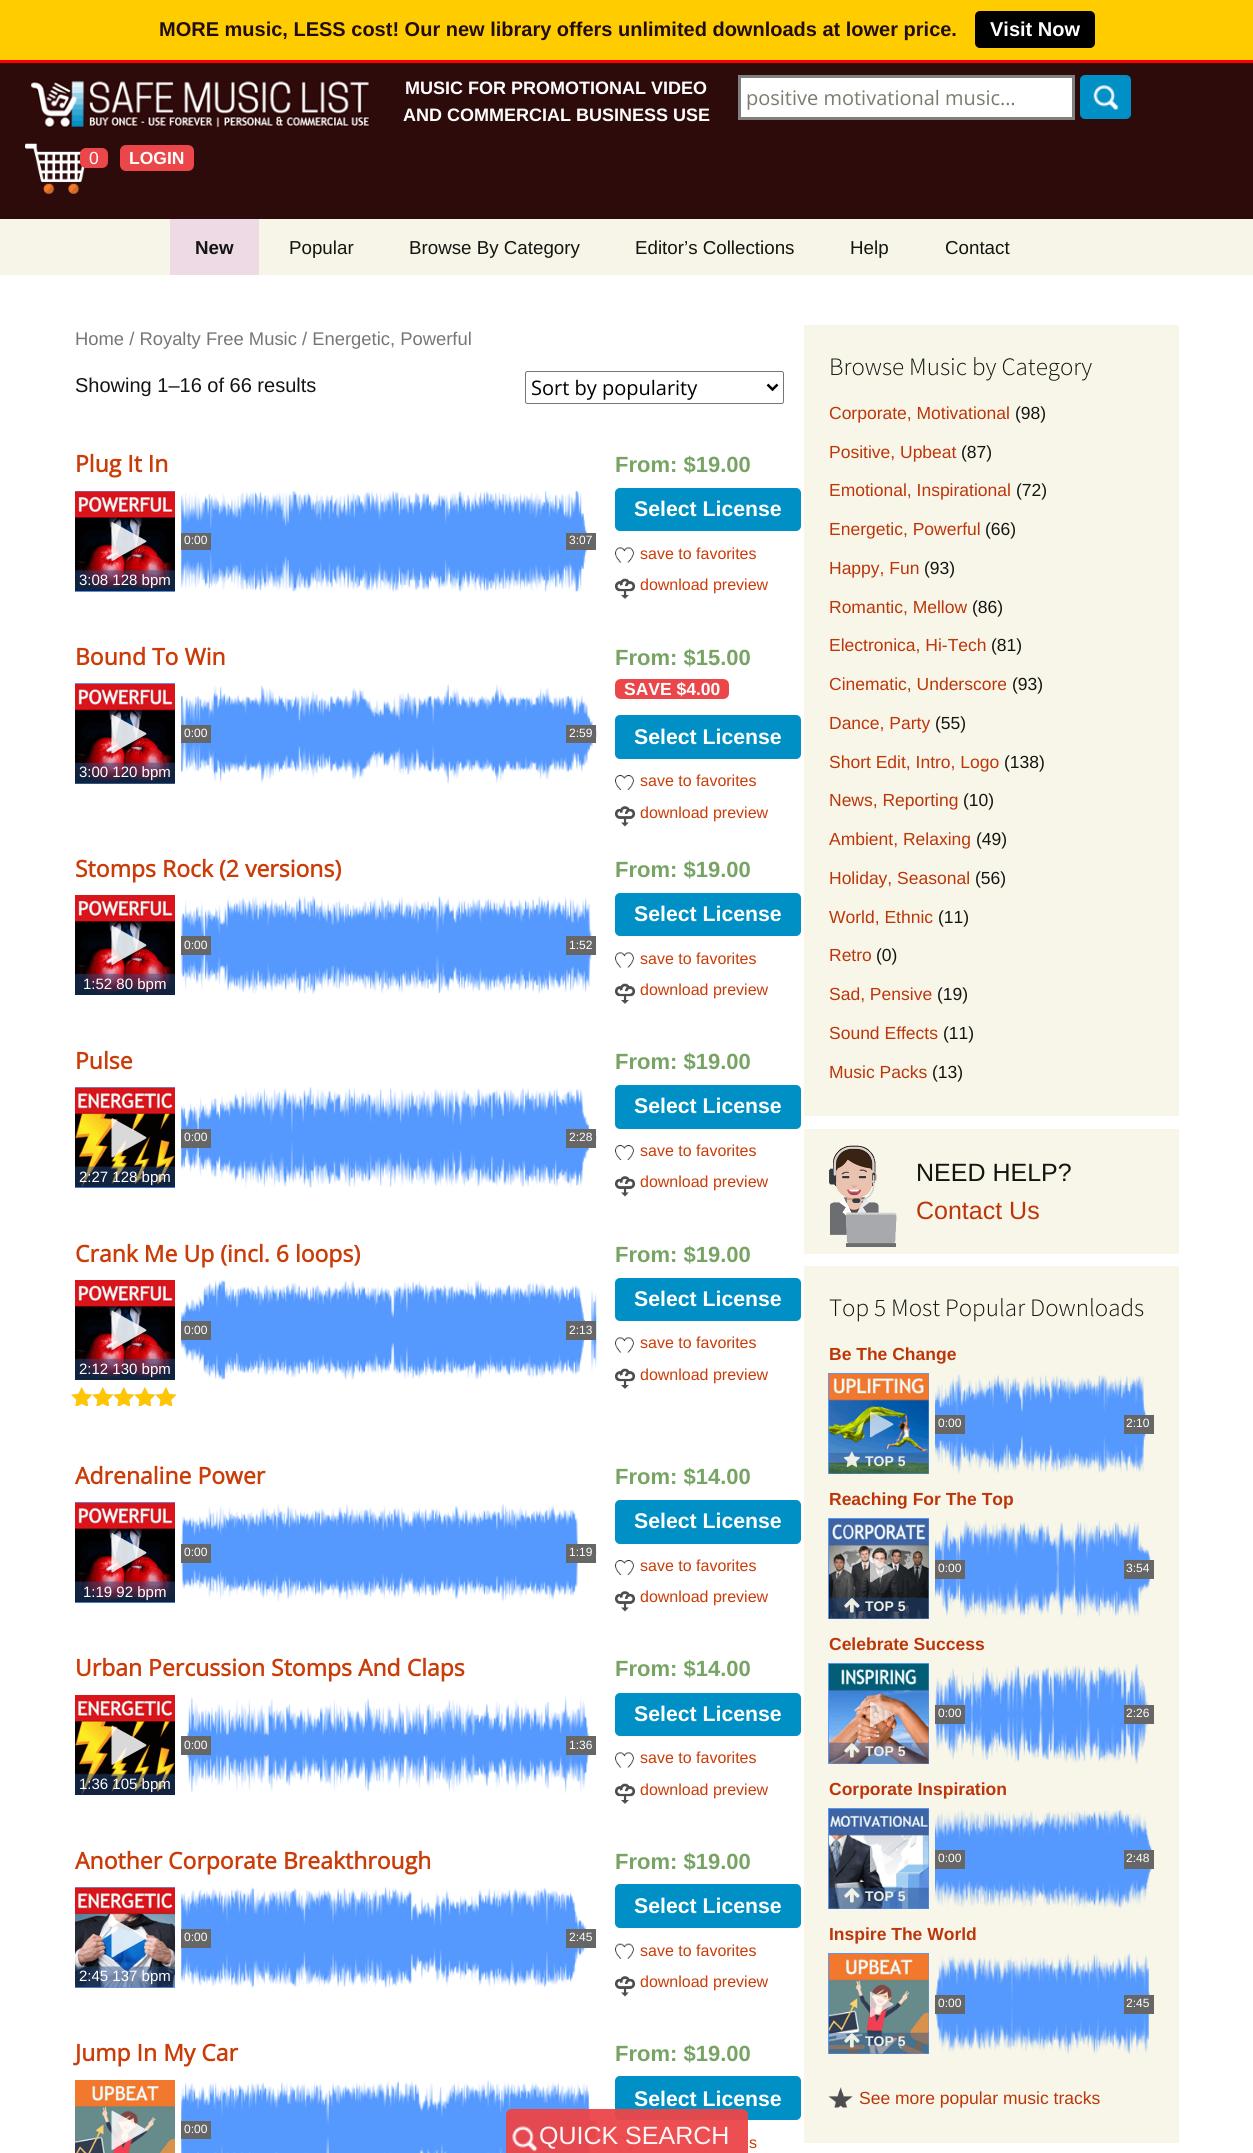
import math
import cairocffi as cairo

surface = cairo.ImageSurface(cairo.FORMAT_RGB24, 1253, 2153)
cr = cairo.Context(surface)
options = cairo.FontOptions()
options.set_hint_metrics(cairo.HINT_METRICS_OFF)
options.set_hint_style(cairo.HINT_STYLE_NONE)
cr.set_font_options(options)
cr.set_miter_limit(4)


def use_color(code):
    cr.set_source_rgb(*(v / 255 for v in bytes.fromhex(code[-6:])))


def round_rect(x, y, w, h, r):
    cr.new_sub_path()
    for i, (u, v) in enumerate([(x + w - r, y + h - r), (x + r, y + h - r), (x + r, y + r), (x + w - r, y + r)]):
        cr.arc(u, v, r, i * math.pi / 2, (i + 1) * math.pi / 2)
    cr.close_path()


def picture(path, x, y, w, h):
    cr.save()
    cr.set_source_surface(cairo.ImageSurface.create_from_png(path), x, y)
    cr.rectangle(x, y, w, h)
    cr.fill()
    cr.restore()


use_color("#ffffff")
cr.paint()
use_color("#ffcc00")
cr.rectangle(0, 0, 1253, 60)
cr.fill()
use_color("#ff0000")
cr.rectangle(0, 60, 1253, 3)
cr.fill()
cr.select_font_face("Liberation Sans", cairo.FONT_SLANT_NORMAL, cairo.FONT_WEIGHT_BOLD)
cr.set_font_size(20)
use_color("#220e10")
cr.move_to(159, 36)
cr.show_text("MORE music, LESS cost! Our new library offers unlimited downloads at lower price.")
use_color("#000000")
round_rect(975, 11, 120, 37, 5)
cr.fill()
use_color("#ffffff")
cr.move_to(990, 36)
cr.show_text("Visit Now")
use_color("#2e0b0b")
cr.rectangle(0, 63, 1253, 156)
cr.fill()
picture("img1.png", 31, 81, 338, 48)
cr.set_font_size(18)
use_color("#ffffff")
cr.move_to(405, 94)
cr.show_text("MUSIC FOR PROMOTIONAL VIDEO")
cr.move_to(403, 121)
cr.show_text("AND COMMERCIAL BUSINESS USE")
cr.rectangle(739.5, 76.5, 334, 42)
cr.fill_preserve()
use_color("#808080")
cr.set_line_width(3)
cr.stroke()
cr.select_font_face("Open Sans")
cr.set_font_size(20)
use_color("#7d7b6d")
cr.move_to(746, 105)
cr.show_text("positive motivational music…")
use_color("#0090c5")
round_rect(1080, 75, 51, 44, 5)
cr.fill()
picture("img2.png", 1093, 85, 26, 25)
picture("img3.png", 25, 143, 60, 51)
use_color("#eb4649")
round_rect(80, 148, 28, 20, 6)
cr.fill()
cr.select_font_face("Liberation Sans")
cr.set_font_size(17.5)
use_color("#ffffff")
cr.move_to(89, 164)
cr.show_text("0")
use_color("#eb4649")
round_rect(120, 145, 74, 26, 6)
cr.fill()
cr.select_font_face("Liberation Sans", cairo.FONT_SLANT_NORMAL, cairo.FONT_WEIGHT_BOLD)
use_color("#ffffff")
cr.move_to(129, 164)
cr.show_text("LOGIN")
use_color("#f7f5e7")
cr.rectangle(0, 219, 1253, 56)
cr.fill()
use_color("#eddae4")
cr.rectangle(170, 219, 89, 56)
cr.fill()
cr.set_font_size(18.75)
use_color("#141412")
cr.move_to(195, 254)
cr.show_text("New")
cr.select_font_face("Liberation Sans")
cr.move_to(289, 254)
cr.show_text("Popular")
cr.move_to(409, 254)
cr.show_text("Browse By Category")
cr.move_to(635, 254)
cr.show_text("Editor’s Collections")
cr.move_to(850, 254)
cr.show_text("Help")
cr.move_to(945, 254)
cr.show_text("Contact")
cr.set_font_size(18.4)
use_color("#767676")
cr.move_to(75, 345)
cr.show_text("Home / Royalty Free Music / Energetic, Powerful")
cr.set_font_size(20)
use_color("#141412")
cr.move_to(75, 392)
cr.show_text("Showing 1–16 of 66 results")
round_rect(525.5, 371.5, 258, 32, 2)
use_color("#767676")
cr.set_line_width(1)
cr.stroke()
cr.new_path()
cr.move_to(767.5, 384.5)
cr.line_to(772.5, 389.5)
cr.line_to(777.5, 384.5)
use_color("#000000")
cr.set_line_width(2.5)
cr.stroke()
cr.select_font_face("Open Sans")
cr.move_to(531, 395)
cr.show_text("Sort by popularity")
cr.select_font_face("Open Sans", cairo.FONT_SLANT_NORMAL, cairo.FONT_WEIGHT_BOLD)
cr.set_font_size(23)
use_color("#ca3c08")
cr.move_to(75, 472)
cr.show_text("Plug It In")
use_color("#5599ff")
cr.rectangle(75, 491, 100, 101)
cr.fill()
picture("img4.png", 75, 491, 100, 101)
cr.set_source_rgba(1, 1, 1, 0.85)
cr.new_path()
cr.move_to(146, 542)
cr.line_to(118, 557.5)
cr.curve_to(117.5, 558, 112.5, 562, 111.5, 560.5)
cr.line_to(111.5, 522.5)
cr.line_to(112, 522)
cr.curve_to(112.5, 522, 132.5, 533, 135, 534.5)
cr.line_to(146, 540.5)
cr.line_to(146.5, 541.5)
cr.close_path()
cr.fill()
picture("img5.png", 181, 491, 407, 101)
use_color("#666666")
cr.rectangle(181, 533, 30, 17)
cr.fill()
cr.select_font_face("Liberation Sans")
cr.set_font_size(12)
use_color("#ffffff")
cr.move_to(184, 544)
cr.show_text("0:00")
use_color("#666666")
cr.rectangle(566, 533, 30, 17)
cr.fill()
use_color("#ffffff")
cr.move_to(569, 544)
cr.show_text("3:07")
cr.set_font_size(15)
cr.move_to(79, 585)
cr.show_text("3:08 128 bpm")
cr.select_font_face("Liberation Sans", cairo.FONT_SLANT_NORMAL, cairo.FONT_WEIGHT_BOLD)
cr.set_font_size(22)
use_color("#77a464")
cr.move_to(615, 472)
cr.show_text("From: $19.00")
use_color("#0090c5")
round_rect(615, 488, 186, 43, 5)
cr.fill()
cr.set_font_size(21.25)
use_color("#ffffff")
cr.move_to(634, 516)
cr.show_text("Select License")
picture("img6.png", 615, 547, 19, 16)
cr.select_font_face("Liberation Sans")
cr.set_font_size(16)
use_color("#ca3c08")
cr.move_to(640, 559)
cr.show_text("save to favorites")
picture("img7.png", 615, 578, 20, 21)
cr.move_to(640, 590)
cr.show_text("download preview")
cr.select_font_face("Open Sans", cairo.FONT_SLANT_NORMAL, cairo.FONT_WEIGHT_BOLD)
cr.set_font_size(23)
cr.move_to(75, 665)
cr.show_text("Bound To Win")
use_color("#5599ff")
cr.rectangle(75, 683, 100, 101)
cr.fill()
picture("img8.png", 75, 683, 100, 101)
cr.set_source_rgba(1, 1, 1, 0.85)
cr.new_path()
cr.move_to(146, 734.5)
cr.line_to(118, 750)
cr.curve_to(117.5, 750.5, 112.5, 754.5, 111.5, 753)
cr.line_to(111.5, 715)
cr.line_to(112, 714.5)
cr.curve_to(112.5, 714.5, 132.5, 725.5, 135, 727)
cr.line_to(146, 733)
cr.line_to(146.5, 734)
cr.close_path()
cr.fill()
picture("img9.png", 181, 684, 416, 100)
use_color("#666666")
cr.rectangle(181, 725, 30, 18)
cr.fill()
cr.select_font_face("Liberation Sans")
cr.set_font_size(12)
use_color("#ffffff")
cr.move_to(184, 737)
cr.show_text("0:00")
use_color("#666666")
cr.rectangle(566, 725, 30, 18)
cr.fill()
use_color("#ffffff")
cr.move_to(569, 737)
cr.show_text("2:59")
cr.set_font_size(15)
cr.move_to(79, 777)
cr.show_text("3:00 120 bpm")
cr.select_font_face("Liberation Sans", cairo.FONT_SLANT_NORMAL, cairo.FONT_WEIGHT_BOLD)
cr.set_font_size(22)
use_color("#77a464")
cr.move_to(615, 665)
cr.show_text("From: $15.00")
use_color("#eb4649")
cr.new_path()
cr.move_to(621, 679)
cr.line_to(676, 679)
cr.line_to(676, 699)
cr.line_to(621, 699)
cr.curve_to(617.5, 699, 615, 696.5, 615, 693)
cr.line_to(615, 685)
cr.curve_to(615, 681.5, 617.5, 679, 621, 679)
cr.close_path()
cr.fill()
cr.rectangle(676, 679, 10, 20)
cr.fill()
cr.new_path()
cr.move_to(686, 679)
cr.line_to(723, 679)
cr.curve_to(726.5, 679, 729, 681.5, 729, 685)
cr.line_to(729, 693)
cr.curve_to(729, 696.5, 726.5, 699, 723, 699)
cr.line_to(686, 699)
cr.close_path()
cr.fill()
cr.set_font_size(17.5)
use_color("#ffffff")
cr.move_to(624, 695)
cr.show_text("SAVE $4.00")
use_color("#0090c5")
round_rect(615, 715, 186, 44, 5)
cr.fill()
cr.set_font_size(21.25)
use_color("#ffffff")
cr.move_to(634, 744)
cr.show_text("Select License")
picture("img10.png", 615, 775, 19, 15)
cr.select_font_face("Liberation Sans")
cr.set_font_size(16)
use_color("#ca3c08")
cr.move_to(640, 786)
cr.show_text("save to favorites")
picture("img11.png", 615, 806, 20, 21)
cr.move_to(640, 818)
cr.show_text("download preview")
cr.select_font_face("Open Sans", cairo.FONT_SLANT_NORMAL, cairo.FONT_WEIGHT_BOLD)
cr.set_font_size(23)
cr.move_to(75, 877)
cr.show_text("Stomps Rock (2 versions)")
picture("img12.png", 75, 895, 100, 100)
cr.set_source_rgba(1, 1, 1, 0.85)
cr.new_path()
cr.move_to(146, 946)
cr.line_to(118, 961.5)
cr.curve_to(117.5, 961.5, 112.5, 966, 111.5, 964.5)
cr.line_to(111.5, 926.5)
cr.line_to(112, 925.5)
cr.curve_to(112.5, 925.5, 132.5, 937, 135, 938)
cr.line_to(146, 944.5)
cr.line_to(146.5, 945)
cr.close_path()
cr.fill()
picture("img13.png", 181, 895, 416, 100)
use_color("#666666")
cr.rectangle(181, 936, 30, 19)
cr.fill()
cr.select_font_face("Liberation Sans")
cr.set_font_size(12)
use_color("#ffffff")
cr.move_to(184, 949)
cr.show_text("0:00")
use_color("#666666")
cr.rectangle(566, 936, 30, 19)
cr.fill()
use_color("#ffffff")
cr.move_to(569, 949)
cr.show_text("1:52")
cr.set_font_size(15)
cr.move_to(83, 989)
cr.show_text("1:52 80 bpm")
cr.select_font_face("Liberation Sans", cairo.FONT_SLANT_NORMAL, cairo.FONT_WEIGHT_BOLD)
cr.set_font_size(22)
use_color("#77a464")
cr.move_to(615, 877)
cr.show_text("From: $19.00")
use_color("#0090c5")
round_rect(615, 893, 186, 43, 5)
cr.fill()
cr.set_font_size(21.25)
use_color("#ffffff")
cr.move_to(634, 921)
cr.show_text("Select License")
picture("img6.png", 615, 952, 19, 16)
cr.select_font_face("Liberation Sans")
cr.set_font_size(16)
use_color("#ca3c08")
cr.move_to(640, 964)
cr.show_text("save to favorites")
picture("img14.png", 615, 983, 20, 21)
cr.move_to(640, 995)
cr.show_text("download preview")
cr.select_font_face("Open Sans", cairo.FONT_SLANT_NORMAL, cairo.FONT_WEIGHT_BOLD)
cr.set_font_size(23)
cr.move_to(75, 1069)
cr.show_text("Pulse")
use_color("#5599ff")
cr.rectangle(75, 1087, 100, 101)
cr.fill()
picture("img15.png", 75, 1087, 100, 101)
cr.set_source_rgba(1, 1, 1, 0.85)
cr.new_path()
cr.move_to(146, 1138.5)
cr.line_to(118, 1154)
cr.curve_to(117.5, 1154, 112.5, 1158.5, 111.5, 1157)
cr.line_to(111.5, 1119)
cr.line_to(112, 1118)
cr.curve_to(112.5, 1118, 132.5, 1129.5, 135, 1130.5)
cr.line_to(146, 1137)
cr.line_to(146.5, 1137.5)
cr.close_path()
cr.fill()
picture("img16.png", 181, 1087, 416, 101)
use_color("#666666")
cr.rectangle(181, 1129, 30, 19)
cr.fill()
cr.select_font_face("Liberation Sans")
cr.set_font_size(12)
use_color("#ffffff")
cr.move_to(184, 1141)
cr.show_text("0:00")
use_color("#666666")
cr.rectangle(566, 1129, 30, 19)
cr.fill()
use_color("#ffffff")
cr.move_to(569, 1141)
cr.show_text("2:28")
cr.set_font_size(15)
cr.move_to(79, 1182)
cr.show_text("2:27 128 bpm")
cr.select_font_face("Liberation Sans", cairo.FONT_SLANT_NORMAL, cairo.FONT_WEIGHT_BOLD)
cr.set_font_size(22)
use_color("#77a464")
cr.move_to(615, 1069)
cr.show_text("From: $19.00")
use_color("#0090c5")
round_rect(615, 1085, 186, 44, 5)
cr.fill()
cr.set_font_size(21.25)
use_color("#ffffff")
cr.move_to(634, 1113)
cr.show_text("Select License")
picture("img17.png", 615, 1145, 19, 15)
cr.select_font_face("Liberation Sans")
cr.set_font_size(16)
use_color("#ca3c08")
cr.move_to(640, 1156)
cr.show_text("save to favorites")
picture("img11.png", 615, 1176, 20, 21)
cr.move_to(640, 1187)
cr.show_text("download preview")
cr.select_font_face("Open Sans", cairo.FONT_SLANT_NORMAL, cairo.FONT_WEIGHT_BOLD)
cr.set_font_size(23)
cr.move_to(75, 1262)
cr.show_text("Crank Me Up (incl. 6 loops)")
picture("img18.png", 75, 1280, 100, 100)
cr.set_source_rgba(1, 1, 1, 0.85)
cr.new_path()
cr.move_to(146, 1331)
cr.line_to(118, 1346.5)
cr.curve_to(117.5, 1346.5, 112.5, 1351, 111.5, 1349.5)
cr.line_to(111.5, 1311.5)
cr.line_to(112, 1310.5)
cr.curve_to(112.5, 1310.5, 132.5, 1322, 135, 1323)
cr.line_to(146, 1329.5)
cr.line_to(146.5, 1330)
cr.close_path()
cr.fill()
picture("img19.png", 181, 1280, 416, 100)
use_color("#666666")
cr.rectangle(181, 1321, 30, 19)
cr.fill()
cr.select_font_face("Liberation Sans")
cr.set_font_size(12)
use_color("#ffffff")
cr.move_to(184, 1334)
cr.show_text("0:00")
use_color("#666666")
cr.rectangle(566, 1321, 30, 19)
cr.fill()
use_color("#ffffff")
cr.move_to(569, 1334)
cr.show_text("2:13")
cr.set_font_size(15)
cr.move_to(79, 1374)
cr.show_text("2:12 130 bpm")
picture("img20.png", 71, 1387, 106, 19)
picture("img21.png", 71, 1387, 106, 19)
cr.select_font_face("Liberation Sans", cairo.FONT_SLANT_NORMAL, cairo.FONT_WEIGHT_BOLD)
cr.set_font_size(22)
use_color("#77a464")
cr.move_to(615, 1262)
cr.show_text("From: $19.00")
use_color("#0090c5")
round_rect(615, 1278, 186, 43, 5)
cr.fill()
cr.set_font_size(21.25)
use_color("#ffffff")
cr.move_to(634, 1306)
cr.show_text("Select License")
picture("img6.png", 615, 1337, 19, 16)
cr.select_font_face("Liberation Sans")
cr.set_font_size(16)
use_color("#ca3c08")
cr.move_to(640, 1348)
cr.show_text("save to favorites")
picture("img14.png", 615, 1368, 20, 21)
cr.move_to(640, 1380)
cr.show_text("download preview")
cr.select_font_face("Open Sans", cairo.FONT_SLANT_NORMAL, cairo.FONT_WEIGHT_BOLD)
cr.set_font_size(23)
cr.move_to(75, 1484)
cr.show_text("Adrenaline Power")
use_color("#5599ff")
cr.rectangle(75, 1502, 100, 101)
cr.fill()
picture("img22.png", 75, 1502, 100, 101)
cr.set_source_rgba(1, 1, 1, 0.85)
cr.new_path()
cr.move_to(146, 1553.5)
cr.line_to(118, 1569)
cr.curve_to(117.5, 1569, 112.5, 1573.5, 111.5, 1572)
cr.line_to(111.5, 1534)
cr.line_to(112, 1533)
cr.curve_to(112.5, 1533, 132.5, 1544.5, 135, 1545.5)
cr.line_to(146, 1552)
cr.line_to(146.5, 1552.5)
cr.close_path()
cr.fill()
picture("img23.png", 181, 1503, 416, 99)
use_color("#666666")
cr.rectangle(181, 1544, 30, 19)
cr.fill()
cr.select_font_face("Liberation Sans")
cr.set_font_size(12)
use_color("#ffffff")
cr.move_to(184, 1556)
cr.show_text("0:00")
use_color("#666666")
cr.rectangle(566, 1544, 30, 19)
cr.fill()
use_color("#ffffff")
cr.move_to(569, 1556)
cr.show_text("1:19")
cr.set_font_size(15)
cr.move_to(83, 1597)
cr.show_text("1:19 92 bpm")
cr.select_font_face("Liberation Sans", cairo.FONT_SLANT_NORMAL, cairo.FONT_WEIGHT_BOLD)
cr.set_font_size(22)
use_color("#77a464")
cr.move_to(615, 1484)
cr.show_text("From: $14.00")
use_color("#0090c5")
round_rect(615, 1500, 186, 44, 5)
cr.fill()
cr.set_font_size(21.25)
use_color("#ffffff")
cr.move_to(634, 1528)
cr.show_text("Select License")
picture("img17.png", 615, 1560, 19, 15)
cr.select_font_face("Liberation Sans")
cr.set_font_size(16)
use_color("#ca3c08")
cr.move_to(640, 1571)
cr.show_text("save to favorites")
picture("img11.png", 615, 1591, 20, 21)
cr.move_to(640, 1602)
cr.show_text("download preview")
cr.select_font_face("Open Sans", cairo.FONT_SLANT_NORMAL, cairo.FONT_WEIGHT_BOLD)
cr.set_font_size(23)
cr.move_to(75, 1676)
cr.show_text("Urban Percussion Stomps And Claps")
picture("img24.png", 75, 1695, 100, 100)
cr.set_source_rgba(1, 1, 1, 0.85)
cr.new_path()
cr.move_to(146, 1746)
cr.line_to(118, 1761.5)
cr.curve_to(117.5, 1761.5, 112.5, 1766, 111.5, 1764.5)
cr.line_to(111.5, 1726.5)
cr.line_to(112, 1725.5)
cr.curve_to(112.5, 1725.5, 132.5, 1737, 135, 1738)
cr.line_to(146, 1744.5)
cr.line_to(146.5, 1745)
cr.close_path()
cr.fill()
picture("img25.png", 187, 1696, 402, 98)
use_color("#666666")
cr.rectangle(181, 1736, 30, 19)
cr.fill()
cr.select_font_face("Liberation Sans")
cr.set_font_size(12)
use_color("#ffffff")
cr.move_to(184, 1749)
cr.show_text("0:00")
use_color("#666666")
cr.rectangle(566, 1736, 30, 19)
cr.fill()
use_color("#ffffff")
cr.move_to(569, 1749)
cr.show_text("1:36")
cr.set_font_size(15)
cr.move_to(79, 1789)
cr.show_text("1:36 105 bpm")
cr.select_font_face("Liberation Sans", cairo.FONT_SLANT_NORMAL, cairo.FONT_WEIGHT_BOLD)
cr.set_font_size(22)
use_color("#77a464")
cr.move_to(615, 1676)
cr.show_text("From: $14.00")
use_color("#0090c5")
round_rect(615, 1693, 186, 43, 5)
cr.fill()
cr.set_font_size(21.25)
use_color("#ffffff")
cr.move_to(634, 1721)
cr.show_text("Select License")
picture("img6.png", 615, 1752, 19, 16)
cr.select_font_face("Liberation Sans")
cr.set_font_size(16)
use_color("#ca3c08")
cr.move_to(640, 1763)
cr.show_text("save to favorites")
picture("img14.png", 615, 1783, 20, 21)
cr.move_to(640, 1795)
cr.show_text("download preview")
cr.select_font_face("Open Sans", cairo.FONT_SLANT_NORMAL, cairo.FONT_WEIGHT_BOLD)
cr.set_font_size(23)
cr.move_to(75, 1869)
cr.show_text("Another Corporate Breakthrough")
use_color("#5599ff")
cr.rectangle(75, 1887, 100, 101)
cr.fill()
picture("img26.png", 75, 1887, 100, 101)
cr.set_source_rgba(1, 1, 1, 0.85)
cr.new_path()
cr.move_to(146, 1938.5)
cr.line_to(118, 1954)
cr.curve_to(117.5, 1954, 112.5, 1958.5, 111.5, 1957)
cr.line_to(111.5, 1919)
cr.line_to(112, 1918)
cr.curve_to(112.5, 1918, 132.5, 1929.5, 135, 1930.5)
cr.line_to(146, 1937)
cr.line_to(146.5, 1937.5)
cr.close_path()
cr.fill()
picture("img27.png", 181, 1887, 406, 101)
use_color("#666666")
cr.rectangle(181, 1929, 30, 19)
cr.fill()
cr.select_font_face("Liberation Sans")
cr.set_font_size(12)
use_color("#ffffff")
cr.move_to(184, 1941)
cr.show_text("0:00")
use_color("#666666")
cr.rectangle(566, 1929, 30, 19)
cr.fill()
use_color("#ffffff")
cr.move_to(569, 1941)
cr.show_text("2:45")
cr.set_font_size(15)
cr.move_to(79, 1981)
cr.show_text("2:45 137 bpm")
cr.select_font_face("Liberation Sans", cairo.FONT_SLANT_NORMAL, cairo.FONT_WEIGHT_BOLD)
cr.set_font_size(22)
use_color("#77a464")
cr.move_to(615, 1869)
cr.show_text("From: $19.00")
use_color("#0090c5")
round_rect(615, 1884, 186, 44, 5)
cr.fill()
cr.set_font_size(21.25)
use_color("#ffffff")
cr.move_to(634, 1913)
cr.show_text("Select License")
picture("img28.png", 615, 1943, 19, 16)
cr.select_font_face("Liberation Sans")
cr.set_font_size(16)
use_color("#ca3c08")
cr.move_to(640, 1956)
cr.show_text("save to favorites")
picture("img11.png", 615, 1976, 20, 21)
cr.move_to(640, 1987)
cr.show_text("download preview")
cr.select_font_face("Open Sans", cairo.FONT_SLANT_NORMAL, cairo.FONT_WEIGHT_BOLD)
cr.set_font_size(23)
cr.move_to(75, 2061)
cr.show_text("Jump In My Car")
picture("img29.png", 75, 2080, 100, 73)
cr.set_source_rgba(1, 1, 1, 0.85)
cr.new_path()
cr.move_to(146, 2131)
cr.line_to(118, 2146.5)
cr.curve_to(117.5, 2146.5, 112.5, 2151, 111.5, 2149.5)
cr.line_to(111.5, 2111.5)
cr.line_to(112, 2110.5)
cr.curve_to(112.5, 2110.5, 132.5, 2122, 135, 2123)
cr.line_to(146, 2129.5)
cr.line_to(146.5, 2130)
cr.close_path()
cr.fill()
picture("img30.png", 181, 2080, 411, 73)
use_color("#666666")
cr.rectangle(181, 2121, 30, 18)
cr.fill()
cr.select_font_face("Liberation Sans")
cr.set_font_size(12)
use_color("#ffffff")
cr.move_to(184, 2133)
cr.show_text("0:00")
use_color("#666666")
cr.rectangle(566, 2121, 30, 18)
cr.fill()
cr.select_font_face("Liberation Sans", cairo.FONT_SLANT_NORMAL, cairo.FONT_WEIGHT_BOLD)
cr.set_font_size(22)
use_color("#77a464")
cr.move_to(615, 2061)
cr.show_text("From: $19.00")
use_color("#0090c5")
round_rect(615, 2076, 186, 44, 5)
cr.fill()
cr.set_font_size(21.25)
use_color("#ffffff")
cr.move_to(634, 2106)
cr.show_text("Select License")
picture("img31.png", 615, 2136, 19, 16)
cr.select_font_face("Liberation Sans")
cr.set_font_size(16)
use_color("#ca3c08")
cr.move_to(749, 2148)
cr.show_text("s")
use_color("#f7f6e8")
cr.rectangle(804, 325, 375, 791)
cr.fill()
cr.select_font_face("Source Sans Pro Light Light")
cr.set_font_size(25)
use_color("#141412")
cr.move_to(829, 375)
cr.show_text("Browse Music by Category")
cr.select_font_face("Liberation Sans")
cr.set_font_size(17.5)
use_color("#bc360a")
cr.move_to(829, 419)
cr.show_text("Corporate, Motivational")
use_color("#141412")
cr.move_to(1015, 419)
cr.show_text("(98)")
use_color("#bc360a")
cr.move_to(829, 458)
cr.show_text("Positive, Upbeat")
use_color("#141412")
cr.move_to(961, 458)
cr.show_text("(87)")
use_color("#bc360a")
cr.move_to(829, 496)
cr.show_text("Emotional, Inspirational")
use_color("#141412")
cr.move_to(1016, 496)
cr.show_text("(72)")
use_color("#bc360a")
cr.move_to(829, 535)
cr.show_text("Energetic, Powerful")
use_color("#141412")
cr.move_to(985, 535)
cr.show_text("(66)")
use_color("#bc360a")
cr.move_to(829, 574)
cr.show_text("Happy, Fun")
use_color("#141412")
cr.move_to(924, 574)
cr.show_text("(93)")
use_color("#bc360a")
cr.move_to(829, 613)
cr.show_text("Romantic, Mellow")
use_color("#141412")
cr.move_to(972, 613)
cr.show_text("(86)")
use_color("#bc360a")
cr.move_to(829, 651)
cr.show_text("Electronica, Hi-Tech")
use_color("#141412")
cr.move_to(991, 651)
cr.show_text("(81)")
use_color("#bc360a")
cr.move_to(829, 690)
cr.show_text("Cinematic, Underscore")
use_color("#141412")
cr.move_to(1012, 690)
cr.show_text("(93)")
use_color("#bc360a")
cr.move_to(829, 729)
cr.show_text("Dance, Party")
use_color("#141412")
cr.move_to(935, 729)
cr.show_text("(55)")
use_color("#bc360a")
cr.move_to(829, 768)
cr.show_text("Short Edit, Intro, Logo")
use_color("#141412")
cr.move_to(1004, 768)
cr.show_text("(138)")
use_color("#bc360a")
cr.move_to(829, 806)
cr.show_text("News, Reporting")
use_color("#141412")
cr.move_to(963, 806)
cr.show_text("(10)")
use_color("#bc360a")
cr.move_to(829, 845)
cr.show_text("Ambient, Relaxing")
use_color("#141412")
cr.move_to(976, 845)
cr.show_text("(49)")
use_color("#bc360a")
cr.move_to(829, 884)
cr.show_text("Holiday, Seasonal")
use_color("#141412")
cr.move_to(975, 884)
cr.show_text("(56)")
use_color("#bc360a")
cr.move_to(829, 923)
cr.show_text("World, Ethnic")
use_color("#141412")
cr.move_to(938, 923)
cr.show_text("(11)")
use_color("#bc360a")
cr.move_to(829, 961)
cr.show_text("Retro")
use_color("#141412")
cr.move_to(876, 961)
cr.show_text("(0)")
use_color("#bc360a")
cr.move_to(829, 1000)
cr.show_text("Sad, Pensive")
use_color("#141412")
cr.move_to(937, 1000)
cr.show_text("(19)")
use_color("#bc360a")
cr.move_to(829, 1039)
cr.show_text("Sound Effects")
use_color("#141412")
cr.move_to(943, 1039)
cr.show_text("(11)")
use_color("#bc360a")
cr.move_to(829, 1078)
cr.show_text("Music Packs")
use_color("#141412")
cr.move_to(932, 1078)
cr.show_text("(13)")
use_color("#f7f6e8")
cr.rectangle(804, 1129, 375, 125)
cr.fill()
picture("img32.png", 829, 1145, 68, 102)
cr.set_font_size(25)
use_color("#141412")
cr.move_to(916, 1181)
cr.show_text("NEED HELP?")
use_color("#bc360a")
cr.move_to(916, 1219)
cr.show_text("Contact Us")
use_color("#f7f6e8")
cr.rectangle(804, 1266, 375, 877)
cr.fill()
cr.select_font_face("Source Sans Pro Light Light")
use_color("#141412")
cr.move_to(829, 1316)
cr.show_text("Top 5 Most Popular Downloads")
cr.select_font_face("Liberation Sans", cairo.FONT_SLANT_NORMAL, cairo.FONT_WEIGHT_BOLD)
cr.set_font_size(17.5)
use_color("#bc360a")
cr.move_to(829, 1360)
cr.show_text("Be The Change")
use_color("#5599ff")
cr.rectangle(828, 1373, 101, 101)
cr.fill()
picture("img33.png", 828, 1373, 101, 101)
cr.set_source_rgba(1, 1, 1, 0.67)
cr.new_path()
cr.move_to(893, 1425)
cr.line_to(874.5, 1435)
cr.curve_to(874, 1435.5, 871, 1438, 870, 1437)
cr.line_to(870, 1411.5)
cr.line_to(870.5, 1411.5)
cr.line_to(889.5, 1421.5)
cr.line_to(893.5, 1424)
cr.close_path()
cr.fill()
picture("img34.png", 935, 1374, 212, 100)
use_color("#666666")
cr.rectangle(935, 1415, 30, 19)
cr.fill()
cr.select_font_face("Liberation Sans")
cr.set_font_size(12)
use_color("#ffffff")
cr.move_to(938, 1427)
cr.show_text("0:00")
use_color("#666666")
cr.rectangle(1124, 1415, 30, 19)
cr.fill()
use_color("#ffffff")
cr.move_to(1126, 1427)
cr.show_text("2:10")
picture("img35.png", 843, 1451, 17, 16)
cr.select_font_face("Liberation Sans", cairo.FONT_SLANT_NORMAL, cairo.FONT_WEIGHT_BOLD)
cr.set_font_size(14)
use_color("#eeeee3")
cr.move_to(865, 1466)
cr.show_text("TOP 5")
cr.set_font_size(17.5)
use_color("#bc360a")
cr.move_to(829, 1505)
cr.show_text("Reaching For The Top")
use_color("#5599ff")
cr.rectangle(828, 1518, 101, 101)
cr.fill()
picture("img36.png", 828, 1518, 101, 101)
cr.set_source_rgba(1, 1, 1, 0.67)
cr.new_path()
cr.move_to(893, 1570)
cr.line_to(874.5, 1580)
cr.curve_to(874, 1580.5, 871, 1583, 870, 1582)
cr.line_to(870, 1556.5)
cr.line_to(870.5, 1556.5)
cr.line_to(889.5, 1566.5)
cr.line_to(893.5, 1569)
cr.close_path()
cr.fill()
picture("img37.png", 935, 1519, 216, 99)
use_color("#666666")
cr.rectangle(935, 1560, 30, 19)
cr.fill()
cr.select_font_face("Liberation Sans")
cr.set_font_size(12)
use_color("#ffffff")
cr.move_to(938, 1572)
cr.show_text("0:00")
use_color("#666666")
cr.rectangle(1124, 1560, 30, 19)
cr.fill()
use_color("#ffffff")
cr.move_to(1126, 1572)
cr.show_text("3:54")
picture("img38.png", 844, 1598, 16, 15)
cr.select_font_face("Liberation Sans", cairo.FONT_SLANT_NORMAL, cairo.FONT_WEIGHT_BOLD)
cr.set_font_size(14)
use_color("#eeeee3")
cr.move_to(865, 1611)
cr.show_text("TOP 5")
cr.set_font_size(17.5)
use_color("#bc360a")
cr.move_to(829, 1650)
cr.show_text("Celebrate Success")
use_color("#5599ff")
cr.rectangle(828, 1663, 101, 101)
cr.fill()
picture("img39.png", 828, 1663, 101, 101)
cr.set_source_rgba(1, 1, 1, 0.67)
cr.new_path()
cr.move_to(893, 1715)
cr.line_to(874.5, 1725)
cr.curve_to(874, 1725.5, 871, 1728, 870, 1727)
cr.line_to(870, 1701.5)
cr.line_to(870.5, 1701.5)
cr.line_to(889.5, 1711.5)
cr.line_to(893.5, 1714)
cr.close_path()
cr.fill()
picture("img40.png", 935, 1664, 214, 100)
use_color("#666666")
cr.rectangle(935, 1705, 30, 19)
cr.fill()
cr.select_font_face("Liberation Sans")
cr.set_font_size(12)
use_color("#ffffff")
cr.move_to(938, 1717)
cr.show_text("0:00")
use_color("#666666")
cr.rectangle(1124, 1705, 30, 19)
cr.fill()
use_color("#ffffff")
cr.move_to(1126, 1717)
cr.show_text("2:26")
picture("img41.png", 844, 1743, 16, 15)
cr.select_font_face("Liberation Sans", cairo.FONT_SLANT_NORMAL, cairo.FONT_WEIGHT_BOLD)
cr.set_font_size(14)
use_color("#eeeee3")
cr.move_to(865, 1756)
cr.show_text("TOP 5")
cr.set_font_size(17.5)
use_color("#bc360a")
cr.move_to(829, 1795)
cr.show_text("Corporate Inspiration")
use_color("#5599ff")
cr.rectangle(828, 1808, 101, 101)
cr.fill()
picture("img42.png", 828, 1808, 101, 101)
cr.set_source_rgba(1, 1, 1, 0.67)
cr.new_path()
cr.move_to(893, 1860)
cr.line_to(874.5, 1870)
cr.curve_to(874, 1870.5, 871, 1873, 870, 1872)
cr.line_to(870, 1846.5)
cr.line_to(870.5, 1846.5)
cr.line_to(889.5, 1856.5)
cr.line_to(893.5, 1859)
cr.close_path()
cr.fill()
picture("img43.png", 935, 1809, 217, 100)
use_color("#666666")
cr.rectangle(935, 1850, 30, 19)
cr.fill()
cr.select_font_face("Liberation Sans")
cr.set_font_size(12)
use_color("#ffffff")
cr.move_to(938, 1862)
cr.show_text("0:00")
use_color("#666666")
cr.rectangle(1124, 1850, 30, 19)
cr.fill()
use_color("#ffffff")
cr.move_to(1126, 1862)
cr.show_text("2:48")
picture("img44.png", 844, 1888, 16, 15)
cr.select_font_face("Liberation Sans", cairo.FONT_SLANT_NORMAL, cairo.FONT_WEIGHT_BOLD)
cr.set_font_size(14)
use_color("#eeeee3")
cr.move_to(865, 1901)
cr.show_text("TOP 5")
cr.set_font_size(17.5)
use_color("#bc360a")
cr.move_to(829, 1940)
cr.show_text("Inspire The World")
use_color("#5599ff")
cr.rectangle(828, 1953, 101, 101)
cr.fill()
picture("img45.png", 828, 1953, 101, 101)
cr.set_source_rgba(1, 1, 1, 0.67)
cr.new_path()
cr.move_to(893, 2005)
cr.line_to(874.5, 2015)
cr.curve_to(874, 2015.5, 871, 2018, 870, 2017)
cr.line_to(870, 1991.5)
cr.line_to(870.5, 1991.5)
cr.line_to(889.5, 2001.5)
cr.line_to(893.5, 2004)
cr.close_path()
cr.fill()
picture("img46.png", 936, 1953, 215, 101)
use_color("#666666")
cr.rectangle(935, 1995, 30, 19)
cr.fill()
cr.select_font_face("Liberation Sans")
cr.set_font_size(12)
use_color("#ffffff")
cr.move_to(938, 2007)
cr.show_text("0:00")
use_color("#666666")
cr.rectangle(1124, 1995, 30, 19)
cr.fill()
use_color("#ffffff")
cr.move_to(1126, 2007)
cr.show_text("2:45")
picture("img47.png", 844, 2033, 16, 15)
cr.select_font_face("Liberation Sans", cairo.FONT_SLANT_NORMAL, cairo.FONT_WEIGHT_BOLD)
cr.set_font_size(14)
use_color("#eeeee3")
cr.move_to(865, 2046)
cr.show_text("TOP 5")
picture("img48.png", 828, 2087, 25, 21)
cr.select_font_face("Liberation Sans")
cr.set_font_size(17.5)
use_color("#bc360a")
cr.move_to(859, 2104)
cr.show_text("See more popular music tracks")
cr.set_source_rgba(0.922, 0.275, 0.286, 0.95)
round_rect(506, 2109, 242, 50, 6)
cr.fill()
picture("img49.png", 512, 2126, 26, 26)
cr.set_font_size(25)
use_color("#fef6f6")
cr.move_to(539, 2144)
cr.show_text("QUICK SEARCH")
surface.write_to_png("result.png")
